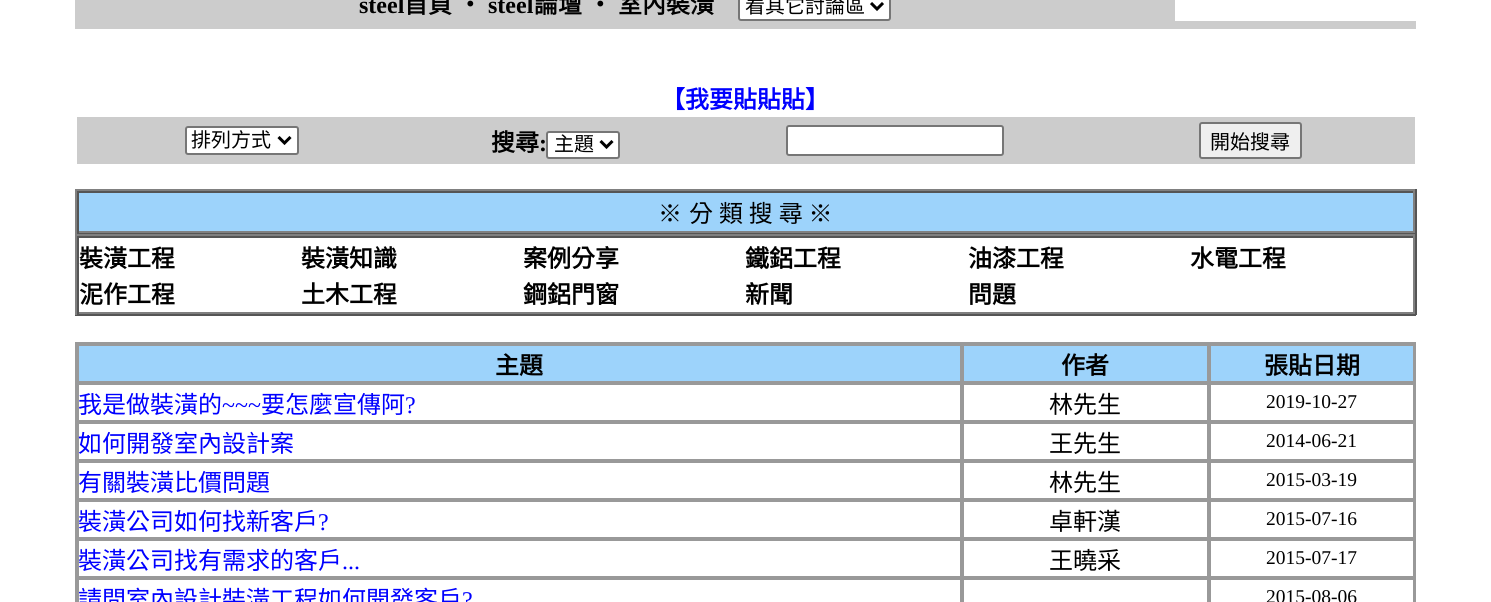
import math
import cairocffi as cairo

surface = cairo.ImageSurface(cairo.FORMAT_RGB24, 1491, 602)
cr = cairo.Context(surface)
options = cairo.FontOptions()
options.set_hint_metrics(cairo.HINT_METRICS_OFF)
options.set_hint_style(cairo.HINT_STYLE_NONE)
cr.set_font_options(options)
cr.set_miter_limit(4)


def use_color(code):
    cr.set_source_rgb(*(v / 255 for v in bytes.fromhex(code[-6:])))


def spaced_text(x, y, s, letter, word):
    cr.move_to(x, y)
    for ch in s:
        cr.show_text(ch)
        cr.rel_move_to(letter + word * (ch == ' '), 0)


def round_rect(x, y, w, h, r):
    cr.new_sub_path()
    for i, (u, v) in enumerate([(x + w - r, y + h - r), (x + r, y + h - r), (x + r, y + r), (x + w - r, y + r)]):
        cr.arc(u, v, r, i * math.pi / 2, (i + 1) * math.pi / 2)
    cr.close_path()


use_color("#ffffff")
cr.paint()
use_color("#cccccc")
cr.rectangle(75, 0, 1100, 21)
cr.fill()
cr.select_font_face("Liberation Serif", cairo.FONT_SLANT_NORMAL, cairo.FONT_WEIGHT_BOLD)
cr.set_font_size(24)
use_color("#000000")
cr.move_to(359, 13)
cr.show_text("steel")
cr.select_font_face("Noto Sans CJK TC", cairo.FONT_SLANT_NORMAL, cairo.FONT_WEIGHT_BOLD)
cr.move_to(404, 13)
cr.show_text("首頁")
cr.move_to(458, 13)
cr.show_text("‧")
cr.select_font_face("Liberation Serif", cairo.FONT_SLANT_NORMAL, cairo.FONT_WEIGHT_BOLD)
cr.move_to(488, 13)
cr.show_text("steel")
cr.select_font_face("Noto Sans CJK TC", cairo.FONT_SLANT_NORMAL, cairo.FONT_WEIGHT_BOLD)
cr.move_to(534, 13)
cr.show_text("論壇")
cr.move_to(588, 13)
cr.show_text("‧")
cr.move_to(618, 13)
cr.show_text("室內裝潢")
use_color("#ffffff")
round_rect(739, -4, 151, 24, 2)
cr.fill_preserve()
use_color("#767676")
cr.stroke()
cr.new_path()
cr.move_to(871, 3)
cr.line_to(877, 9)
cr.line_to(883, 3)
use_color("#000000")
cr.set_line_width(3)
cr.stroke()
cr.select_font_face("Noto Sans CJK TC")
cr.set_font_size(20)
cr.move_to(745, 13)
cr.show_text("看其它討論區")
use_color("#cccccc")
cr.rectangle(75, 21, 1341, 8)
cr.fill()
cr.select_font_face("Noto Sans CJK TC", cairo.FONT_SLANT_NORMAL, cairo.FONT_WEIGHT_BOLD)
cr.set_font_size(24)
use_color("#0000ff")
cr.move_to(661, 108)
cr.show_text("【我要貼貼貼】")
use_color("#cccccc")
cr.rectangle(77, 117, 1338, 47)
cr.fill()
use_color("#ffffff")
round_rect(186, 127, 112, 27, 2)
cr.fill_preserve()
use_color("#767676")
cr.set_line_width(2)
cr.stroke()
cr.new_path()
cr.move_to(278.5, 137)
cr.line_to(284.5, 143)
cr.line_to(290.5, 137)
use_color("#000000")
cr.set_line_width(3)
cr.stroke()
cr.select_font_face("Noto Sans CJK TC")
cr.set_font_size(20)
cr.move_to(191, 147)
cr.show_text("排列方式")
cr.select_font_face("Noto Sans CJK TC", cairo.FONT_SLANT_NORMAL, cairo.FONT_WEIGHT_BOLD)
cr.set_font_size(24)
cr.move_to(491, 151)
cr.show_text("搜尋")
cr.select_font_face("Liberation Serif", cairo.FONT_SLANT_NORMAL, cairo.FONT_WEIGHT_BOLD)
cr.move_to(539, 151)
cr.show_text(":")
use_color("#ffffff")
round_rect(547, 132, 72, 26, 2)
cr.fill_preserve()
use_color("#767676")
cr.set_line_width(2)
cr.stroke()
cr.new_path()
cr.move_to(600.5, 141)
cr.line_to(606.5, 147)
cr.line_to(612.5, 141)
use_color("#000000")
cr.set_line_width(3)
cr.stroke()
cr.select_font_face("Noto Sans CJK TC")
cr.set_font_size(20)
cr.move_to(554, 151)
cr.show_text("主題")
use_color("#ffffff")
round_rect(787, 126, 216, 29, 2)
cr.fill_preserve()
use_color("#767676")
cr.set_line_width(2)
cr.stroke()
use_color("#efefef")
round_rect(1200, 123, 101, 35, 2)
cr.fill_preserve()
use_color("#767676")
cr.stroke()
use_color("#000000")
cr.move_to(1210, 149)
cr.show_text("開始搜尋")
use_color("#808080")
cr.rectangle(75, 189, 1341, 2)
cr.fill()
use_color("#555555")
cr.rectangle(1415, 189, 2, 45)
cr.fill()
cr.rectangle(75, 233, 1341, 1)
cr.fill()
use_color("#808080")
cr.rectangle(75, 189, 2, 45)
cr.fill()
use_color("#9dd3fb")
cr.rectangle(79, 193, 1334, 38)
cr.fill()
use_color("#555555")
cr.rectangle(77, 191, 1338, 2)
cr.fill()
use_color("#808080")
cr.rectangle(1413, 191, 2, 42)
cr.fill()
cr.rectangle(77, 231, 1338, 2)
cr.fill()
use_color("#555555")
cr.rectangle(77, 191, 2, 42)
cr.fill()
cr.set_font_size(24)
use_color("#000000")
cr.move_to(658, 222)
cr.show_text("※")
spaced_text(689, 222, "分 類 搜 尋 ※", 0, 0.5)
use_color("#808080")
cr.rectangle(75, 234, 1341, 2)
cr.fill()
use_color("#555555")
cr.rectangle(1415, 234, 2, 81)
cr.fill()
cr.rectangle(75, 314, 1341, 2)
cr.fill()
use_color("#808080")
cr.rectangle(75, 234, 2, 81)
cr.fill()
use_color("#555555")
cr.rectangle(77, 236, 1338, 2)
cr.fill()
use_color("#808080")
cr.rectangle(1413, 236, 2, 78)
cr.fill()
cr.rectangle(77, 312, 1338, 2)
cr.fill()
use_color("#555555")
cr.rectangle(77, 236, 2, 78)
cr.fill()
cr.select_font_face("Noto Sans CJK TC", cairo.FONT_SLANT_NORMAL, cairo.FONT_WEIGHT_BOLD)
use_color("#000000")
cr.move_to(79, 267)
cr.show_text("裝潢工程")
cr.move_to(301, 267)
cr.show_text("裝潢知識")
cr.move_to(523, 267)
cr.show_text("案例分享")
cr.move_to(745, 267)
cr.show_text("鐵鋁工程")
cr.move_to(968, 267)
cr.show_text("油漆工程")
cr.move_to(1190, 267)
cr.show_text("水電工程")
cr.move_to(79, 303)
cr.show_text("泥作工程")
cr.move_to(301, 303)
cr.show_text("土木工程")
cr.move_to(523, 303)
cr.show_text("鋼鋁門窗")
cr.move_to(745, 303)
cr.show_text("新聞")
cr.move_to(968, 303)
cr.show_text("問題")
cr.rectangle(76, 343, 1339, 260)
use_color("#999999")
cr.stroke()
use_color("#9dd3fb")
cr.rectangle(79, 346, 1334, 35)
cr.fill()
cr.rectangle(78, 345, 883, 37)
use_color("#999999")
cr.stroke()
use_color("#000000")
cr.move_to(495, 374)
cr.show_text("主題")
cr.rectangle(963, 345, 245, 37)
use_color("#999999")
cr.stroke()
use_color("#000000")
cr.move_to(1061, 374)
cr.show_text("作者")
cr.rectangle(1210, 345, 204, 37)
use_color("#999999")
cr.stroke()
use_color("#000000")
cr.move_to(1264, 374)
cr.show_text("張貼日期")
cr.rectangle(78, 384, 883, 37)
use_color("#999999")
cr.stroke()
cr.select_font_face("Noto Sans CJK TC")
use_color("#0000ff")
cr.move_to(78, 413)
cr.show_text("我是做裝潢的")
cr.select_font_face("Liberation Serif")
cr.move_to(222, 413)
cr.show_text("~~~")
cr.select_font_face("Noto Sans CJK TC")
cr.move_to(261, 413)
cr.show_text("要怎麼宣傳阿")
cr.select_font_face("Liberation Serif")
cr.move_to(405, 413)
cr.show_text("?")
cr.rectangle(963, 384, 245, 37)
use_color("#999999")
cr.stroke()
cr.select_font_face("Noto Sans CJK TC")
use_color("#000000")
cr.move_to(1049, 413)
cr.show_text("林先生")
cr.rectangle(1210, 384, 204, 37)
use_color("#999999")
cr.stroke()
cr.select_font_face("Liberation Serif")
cr.set_font_size(19.5)
use_color("#000000")
cr.move_to(1266, 408)
cr.show_text("2019-10-27")
cr.rectangle(78, 423, 883, 37)
use_color("#999999")
cr.stroke()
cr.select_font_face("Noto Sans CJK TC")
cr.set_font_size(24)
use_color("#0000ff")
cr.move_to(78, 452)
cr.show_text("如何開發室內設計案")
cr.rectangle(963, 423, 245, 37)
use_color("#999999")
cr.stroke()
use_color("#000000")
cr.move_to(1049, 452)
cr.show_text("王先生")
cr.rectangle(1210, 423, 204, 37)
use_color("#999999")
cr.stroke()
cr.select_font_face("Liberation Serif")
cr.set_font_size(19.5)
use_color("#000000")
cr.move_to(1266, 447)
cr.show_text("2014-06-21")
cr.rectangle(78, 462, 883, 37)
use_color("#999999")
cr.stroke()
cr.select_font_face("Noto Sans CJK TC")
cr.set_font_size(24)
use_color("#0000ff")
cr.move_to(78, 491)
cr.show_text("有關裝潢比價問題")
cr.rectangle(963, 462, 245, 37)
use_color("#999999")
cr.stroke()
use_color("#000000")
cr.move_to(1049, 491)
cr.show_text("林先生")
cr.rectangle(1210, 462, 204, 37)
use_color("#999999")
cr.stroke()
cr.select_font_face("Liberation Serif")
cr.set_font_size(19.5)
use_color("#000000")
cr.move_to(1266, 486)
cr.show_text("2015-03-19")
cr.rectangle(78, 501, 883, 37)
use_color("#999999")
cr.stroke()
cr.select_font_face("Noto Sans CJK TC")
cr.set_font_size(24)
use_color("#0000ff")
cr.move_to(78, 530)
cr.show_text("裝潢公司如何找新客戶")
cr.select_font_face("Liberation Serif")
cr.move_to(318, 530)
cr.show_text("?")
cr.rectangle(963, 501, 245, 37)
use_color("#999999")
cr.stroke()
cr.select_font_face("Noto Sans CJK TC")
use_color("#000000")
cr.move_to(1049, 530)
cr.show_text("卓軒漢")
cr.rectangle(1210, 501, 204, 37)
use_color("#999999")
cr.stroke()
cr.select_font_face("Liberation Serif")
cr.set_font_size(19.5)
use_color("#000000")
cr.move_to(1266, 525)
cr.show_text("2015-07-16")
cr.rectangle(78, 540, 883, 37)
use_color("#999999")
cr.stroke()
cr.select_font_face("Noto Sans CJK TC")
cr.set_font_size(24)
use_color("#0000ff")
cr.move_to(78, 569)
cr.show_text("裝潢公司找有需求的客戶")
cr.select_font_face("Liberation Serif")
cr.move_to(342, 569)
cr.show_text("...")
cr.rectangle(963, 540, 245, 37)
use_color("#999999")
cr.stroke()
cr.select_font_face("Noto Sans CJK TC")
use_color("#000000")
cr.move_to(1049, 569)
cr.show_text("王曉采")
cr.rectangle(1210, 540, 204, 37)
use_color("#999999")
cr.stroke()
cr.select_font_face("Liberation Serif")
cr.set_font_size(19.5)
use_color("#000000")
cr.move_to(1266, 564)
cr.show_text("2015-07-17")
cr.rectangle(78, 579, 883, 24)
use_color("#999999")
cr.stroke()
cr.select_font_face("Noto Sans CJK TC")
cr.set_font_size(24)
use_color("#0000ff")
cr.move_to(78, 608)
cr.show_text("請問室內設計裝潢工程如何開發客戶")
cr.select_font_face("Liberation Serif")
cr.move_to(462, 608)
cr.show_text("?")
cr.rectangle(963, 579, 245, 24)
use_color("#999999")
cr.stroke()
cr.rectangle(1210, 579, 204, 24)
cr.stroke()
cr.set_font_size(19.5)
use_color("#000000")
cr.move_to(1266, 603)
cr.show_text("2015-08-06")
surface.write_to_png("result.png")
